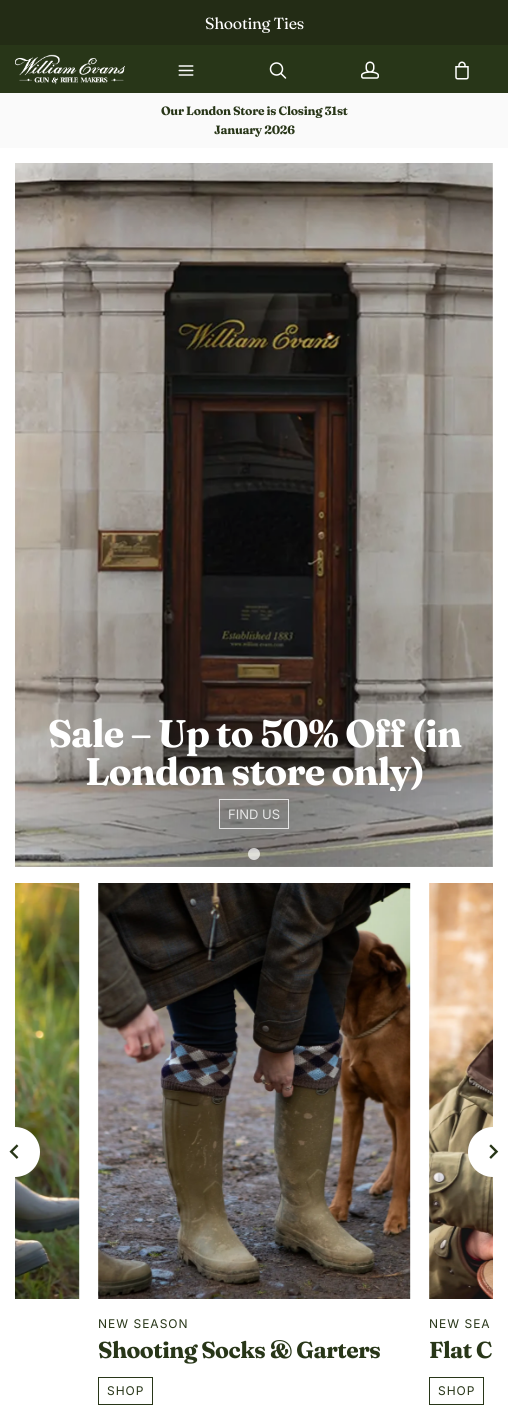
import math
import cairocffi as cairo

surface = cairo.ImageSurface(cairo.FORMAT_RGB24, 508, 1408)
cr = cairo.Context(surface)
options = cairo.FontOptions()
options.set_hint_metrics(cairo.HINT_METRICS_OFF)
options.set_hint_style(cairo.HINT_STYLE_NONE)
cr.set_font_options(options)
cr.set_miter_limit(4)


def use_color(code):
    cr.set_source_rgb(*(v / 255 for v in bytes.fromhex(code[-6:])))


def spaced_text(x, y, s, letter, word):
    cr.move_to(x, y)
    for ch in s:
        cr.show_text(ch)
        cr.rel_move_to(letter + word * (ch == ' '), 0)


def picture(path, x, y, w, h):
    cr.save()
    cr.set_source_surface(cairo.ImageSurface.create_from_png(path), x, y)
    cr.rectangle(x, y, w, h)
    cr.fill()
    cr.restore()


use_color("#ffffff")
cr.paint()
use_color("#232c15")
cr.rectangle(0, 0, 508, 45)
cr.fill()
cr.select_font_face("Fraunces")
cr.set_font_size(16)
use_color("#ffffff")
spaced_text(205, 29, "Shooting Ties", -0.25, 0)
use_color("#283618")
cr.rectangle(0, 45, 508, 48)
cr.fill()
picture("img1.png", 15, 54, 110, 31)
picture("img2.png", 178, 65, 16, 11)
picture("img3.png", 269, 62, 18, 17)
picture("img4.png", 361, 61, 18, 18)
picture("img5.png", 455, 61, 14, 19)
use_color("#fafafa")
cr.rectangle(0, 93, 508, 55)
cr.fill()
cr.select_font_face("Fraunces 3", cairo.FONT_SLANT_NORMAL, cairo.FONT_WEIGHT_BOLD)
cr.set_font_size(12)
use_color("#283618")
spaced_text(161, 115, "Our London Store is Closing 31st", -0.25, 0)
spaced_text(214, 134, "January 2026", -0.25, 0)
picture("img6.png", 15, 163, 478, 704)
gradient = cairo.RadialGradient(0, 0, 0, 0, 0, 1)
gradient.set_matrix(cairo.Matrix(1 / 338, 0, 0, 1 / 996, -1 * 254 / 338, -1 * 867 / 996))
gradient.add_color_stop_rgba(0.1, 0, 0, 0, 0.33)
gradient.add_color_stop_rgba(1, 0, 0, 0, 0)
cr.set_source(gradient)
cr.rectangle(15, 163, 478, 704)
cr.fill()
cr.select_font_face("Fraunces", cairo.FONT_SLANT_NORMAL, cairo.FONT_WEIGHT_BOLD)
cr.set_font_size(38.4)
use_color("#ffffff")
spaced_text(48, 747, "Sale – Up to 50% Off (in", -0.75, 0)
cr.save()
cr.rectangle(41, 714, 426, 77)
cr.clip()
spaced_text(85, 785, "London store only)", -0.75, 0)
cr.restore()
cr.rectangle(219.5, 799.5, 69, 29)
use_color("#e5e5e5")
cr.set_line_width(1)
cr.stroke()
cr.select_font_face("Inter")
cr.set_font_size(13)
cr.move_to(228, 819)
cr.show_text("FIND US")
cr.set_source_rgba(1, 1, 1, 0.7)
cr.new_path()
cr.arc(254, 854, 6, 0, 2 * math.pi)
cr.fill()
picture("img9.png", 15, 883, 65, 416)
use_color("#ffffff")
cr.arc(15, 1152, 25, 0, 2 * math.pi)
cr.fill()
picture("img7.png", 9, 1144, 10, 15)
picture("img11.png", 429, 883, 64, 416)
cr.arc(493, 1152, 25, 0, 2 * math.pi)
cr.fill()
picture("img8.png", 489, 1144, 10, 15)
picture("img10.png", 98, 883, 313, 416)
cr.set_font_size(12)
use_color("#283618")
spaced_text(98, 1328, "NEW SEASON", 1, 0)
cr.select_font_face("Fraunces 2", cairo.FONT_SLANT_NORMAL, cairo.FONT_WEIGHT_BOLD)
cr.set_font_size(23)
spaced_text(98, 1358, "Shooting Socks & Garters", -0.5, 0)
cr.rectangle(98.5, 1377.5, 54, 27)
cr.stroke()
cr.select_font_face("Inter")
cr.set_font_size(12)
spaced_text(107, 1395, "SHOP", 1, 0)
spaced_text(429, 1328, "NEW SEA", 1, 0)
cr.select_font_face("Fraunces 2", cairo.FONT_SLANT_NORMAL, cairo.FONT_WEIGHT_BOLD)
cr.set_font_size(23)
spaced_text(429, 1358, "Flat C", -0.5, 0)
cr.rectangle(429.5, 1377.5, 54, 27)
cr.stroke()
cr.select_font_face("Inter")
cr.set_font_size(12)
spaced_text(438, 1395, "SHOP", 1, 0)
surface.write_to_png("result.png")
